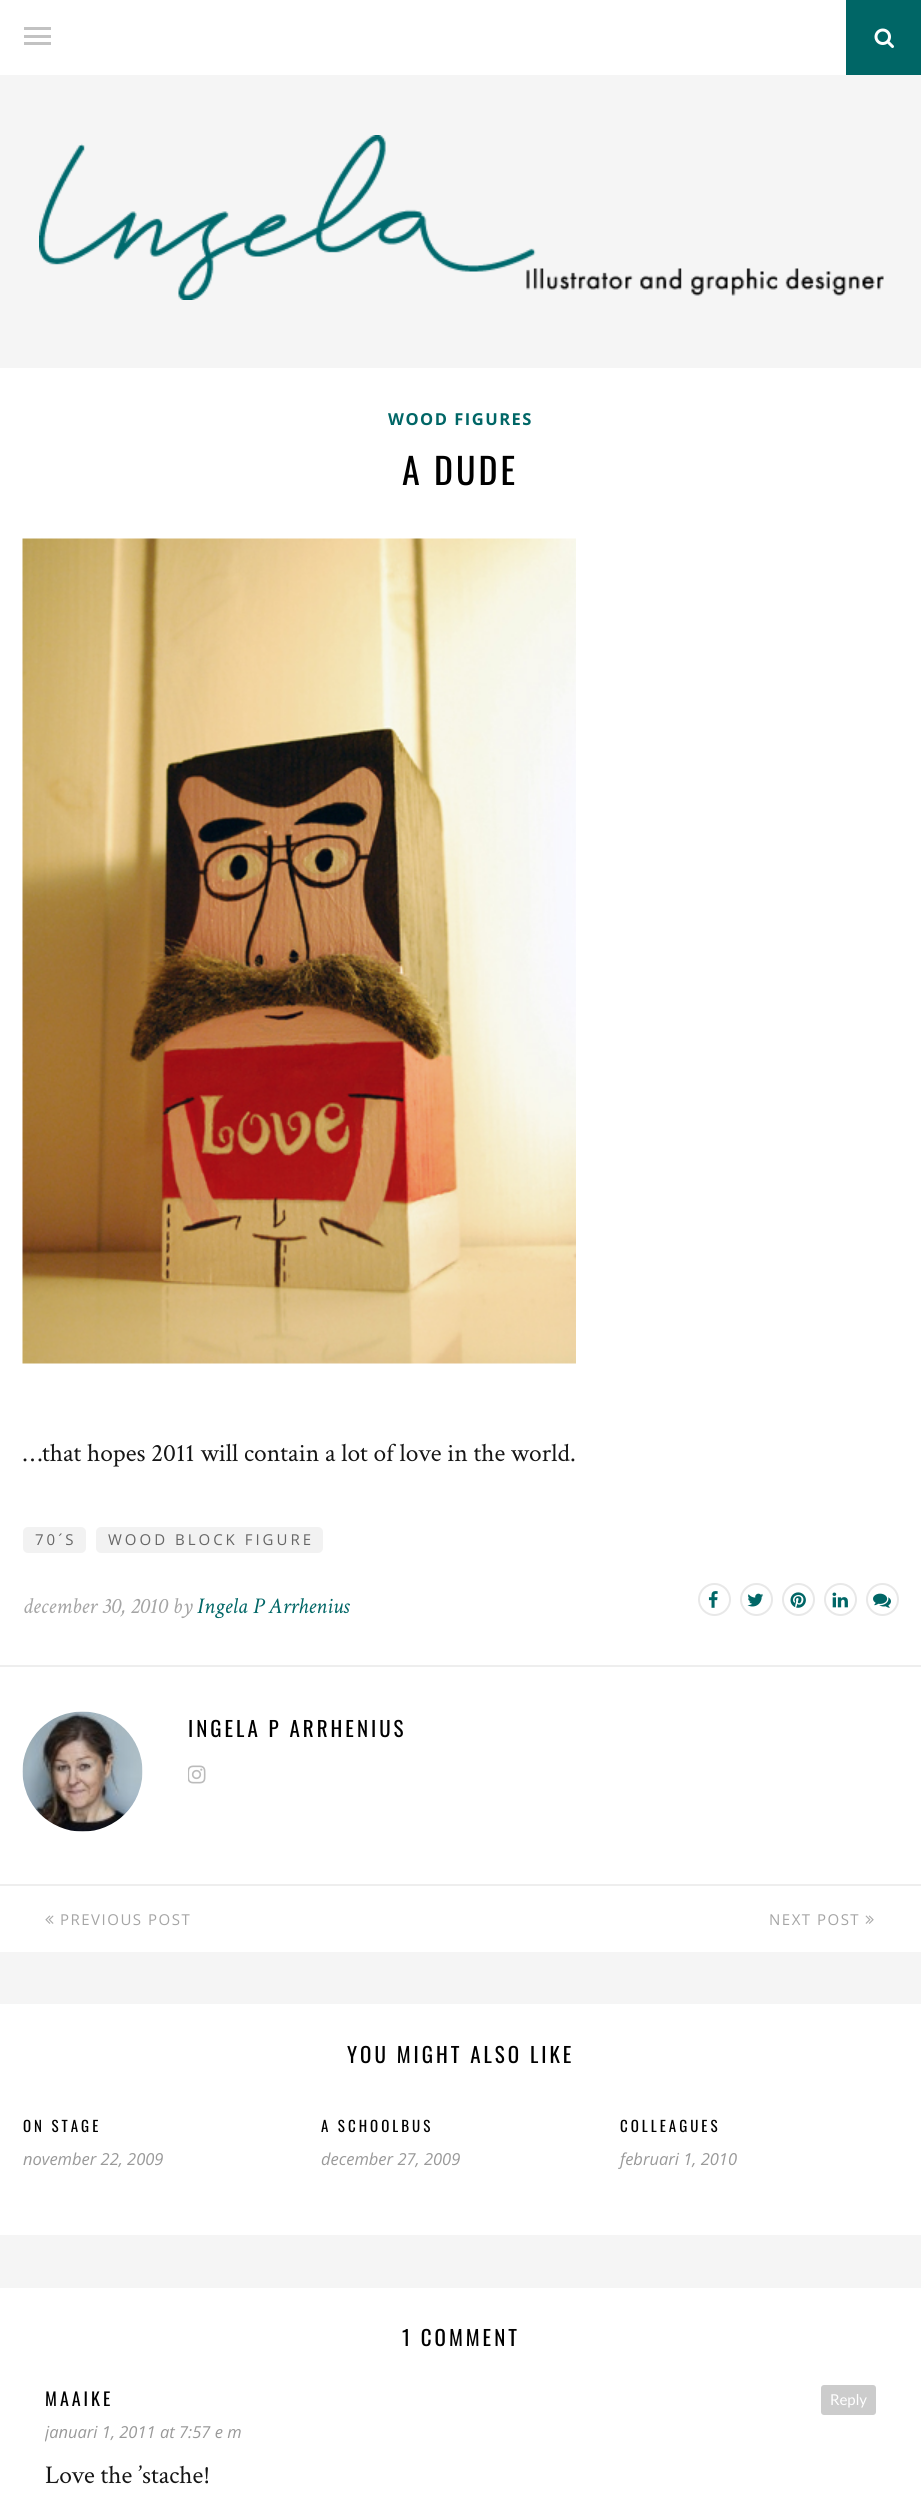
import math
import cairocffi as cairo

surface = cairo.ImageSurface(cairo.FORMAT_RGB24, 921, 2505)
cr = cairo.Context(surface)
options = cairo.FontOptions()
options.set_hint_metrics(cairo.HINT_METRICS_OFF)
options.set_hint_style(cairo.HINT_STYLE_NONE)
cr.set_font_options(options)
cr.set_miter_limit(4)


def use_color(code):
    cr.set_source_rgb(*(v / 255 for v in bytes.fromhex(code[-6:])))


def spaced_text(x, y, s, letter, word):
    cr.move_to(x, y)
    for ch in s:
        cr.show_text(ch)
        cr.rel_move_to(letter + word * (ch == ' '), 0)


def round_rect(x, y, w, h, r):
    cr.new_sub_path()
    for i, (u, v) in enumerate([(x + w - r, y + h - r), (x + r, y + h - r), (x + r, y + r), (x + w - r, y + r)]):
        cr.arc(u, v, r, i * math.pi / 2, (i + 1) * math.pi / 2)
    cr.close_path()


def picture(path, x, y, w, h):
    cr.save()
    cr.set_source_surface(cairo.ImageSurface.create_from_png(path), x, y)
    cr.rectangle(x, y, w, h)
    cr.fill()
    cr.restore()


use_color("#f5f5f5")
cr.paint()
use_color("#ffffff")
cr.rectangle(0, 0, 846, 75)
cr.fill()
use_color("#c2c2c2")
cr.rectangle(24, 27, 27, 3)
cr.fill()
cr.rectangle(24, 35, 27, 3)
cr.fill()
cr.rectangle(24, 42, 27, 3)
cr.fill()
use_color("#006666")
cr.rectangle(846, 0, 75, 75)
cr.fill()
picture("img1.png", 874, 28, 20, 20)
picture("img2.png", 39, 135, 845, 165)
use_color("#ffffff")
cr.rectangle(0, 368, 921, 1584)
cr.fill()
cr.select_font_face("Open Sans", cairo.FONT_SLANT_NORMAL, cairo.FONT_WEIGHT_BOLD)
cr.set_font_size(16.5)
use_color("#006666")
spaced_text(388, 425, "WOOD FIGURES", 1.5, 0)
cr.select_font_face("Oswald")
cr.set_font_size(36)
use_color("#000000")
spaced_text(402, 485, "A DUDE", 3, 0)
picture("img3.png", 22, 538, 554, 826)
cr.select_font_face("Crimson Text")
cr.set_font_size(25.5)
use_color("#161616")
cr.move_to(23, 1461)
cr.show_text("…that hopes 2011 will contain a lot of love in the world.")
use_color("#f2f2f2")
round_rect(23, 1527, 63, 26, 5)
cr.fill()
cr.select_font_face("Open Sans")
cr.set_font_size(15)
use_color("#666666")
spaced_text(35, 1545, "70´S", 3, 0)
use_color("#f2f2f2")
round_rect(96, 1527, 227, 26, 5)
cr.fill()
use_color("#666666")
spaced_text(108, 1545, "WOOD BLOCK FIGURE", 3, 0)
cr.select_font_face("Crimson Text", cairo.FONT_SLANT_ITALIC)
cr.set_font_size(22.5)
use_color("#a5a5a5")
cr.move_to(23, 1613)
cr.show_text("december 30, 2010 by")
use_color("#006666")
cr.move_to(197, 1613)
cr.show_text("Ingela P Arrhenius")
cr.new_path()
cr.arc(714.5, 1599.5, 15.5, 0, 2 * math.pi)
use_color("#e8e8e8")
cr.stroke()
picture("img4.png", 708, 1591, 10, 17)
cr.arc(756.5, 1599.5, 15.5, 0, 2 * math.pi)
cr.stroke()
picture("img5.png", 747, 1593, 17, 14)
cr.arc(798.5, 1599.5, 15.5, 0, 2 * math.pi)
cr.stroke()
picture("img6.png", 790, 1592, 16, 16)
cr.arc(840.5, 1599.5, 15.5, 0, 2 * math.pi)
cr.stroke()
picture("img7.png", 832, 1592, 16, 16)
cr.arc(882.5, 1599.5, 15.5, 0, 2 * math.pi)
cr.stroke()
picture("img8.png", 873, 1593, 18, 15)
use_color("#eeeeee")
cr.rectangle(0, 1665, 921, 2)
cr.fill()
picture("img9.png", 22, 1711, 121, 121)
cr.select_font_face("Oswald")
cr.set_font_size(21)
use_color("#000000")
spaced_text(188, 1737, "INGELA P ARRHENIUS", 3, 0)
picture("img10.png", 188, 1765, 18, 19)
use_color("#eeeeee")
cr.rectangle(0, 1884, 921, 2)
cr.fill()
picture("img11.png", 45, 1915, 9, 9)
cr.select_font_face("Open Sans")
cr.set_font_size(15)
use_color("#a5a5a5")
spaced_text(60, 1925, "PREVIOUS POST", 1.5, 0)
spaced_text(769, 1925, "NEXT POST", 1.5, 0)
picture("img12.png", 865, 1915, 9, 9)
use_color("#ffffff")
cr.rectangle(0, 2004, 921, 231)
cr.fill()
cr.select_font_face("Oswald")
cr.set_font_size(21)
use_color("#000000")
spaced_text(347, 2063, "YOU MIGHT ALSO LIKE", 3, 0)
cr.set_font_size(15)
spaced_text(23, 2132, "ON STAGE", 3, 0)
cr.select_font_face("Open Sans", cairo.FONT_SLANT_ITALIC)
cr.set_font_size(16.5)
use_color("#999999")
cr.move_to(23, 2165)
cr.show_text("november 22, 2009")
cr.select_font_face("Oswald")
cr.set_font_size(15)
use_color("#000000")
spaced_text(321, 2132, "A SCHOOLBUS", 3, 0)
cr.select_font_face("Open Sans", cairo.FONT_SLANT_ITALIC)
cr.set_font_size(16.5)
use_color("#999999")
cr.move_to(321, 2165)
cr.show_text("december 27, 2009")
cr.select_font_face("Oswald")
cr.set_font_size(15)
use_color("#000000")
spaced_text(620, 2132, "COLLEAGUES", 3, 0)
cr.select_font_face("Open Sans", cairo.FONT_SLANT_ITALIC)
cr.set_font_size(16.5)
use_color("#999999")
cr.move_to(620, 2165)
cr.show_text("februari 1, 2010")
use_color("#ffffff")
cr.rectangle(0, 2288, 921, 217)
cr.fill()
cr.select_font_face("Oswald")
cr.set_font_size(21)
use_color("#000000")
spaced_text(402, 2346, "1 COMMENT", 3, 0)
cr.set_font_size(18)
spaced_text(45, 2406, "MAAIKE", 3, 0)
use_color("#cccccc")
round_rect(821, 2385, 55, 30, 3)
cr.fill()
cr.select_font_face("Lato")
cr.set_font_size(15)
use_color("#ffffff")
cr.move_to(830, 2405)
cr.show_text("Reply")
cr.save()
cr.rectangle(45, 2385, 831, 110)
cr.clip()
cr.select_font_face("Open Sans", cairo.FONT_SLANT_ITALIC)
cr.set_font_size(16.5)
use_color("#999999")
cr.move_to(45, 2438)
cr.show_text("januari 1, 2011 at 7:57 e m")
cr.restore()
cr.select_font_face("Crimson Text")
cr.set_font_size(25.5)
use_color("#161616")
cr.move_to(45, 2483)
cr.show_text("Love the ’stache!")
surface.write_to_png("result.png")
